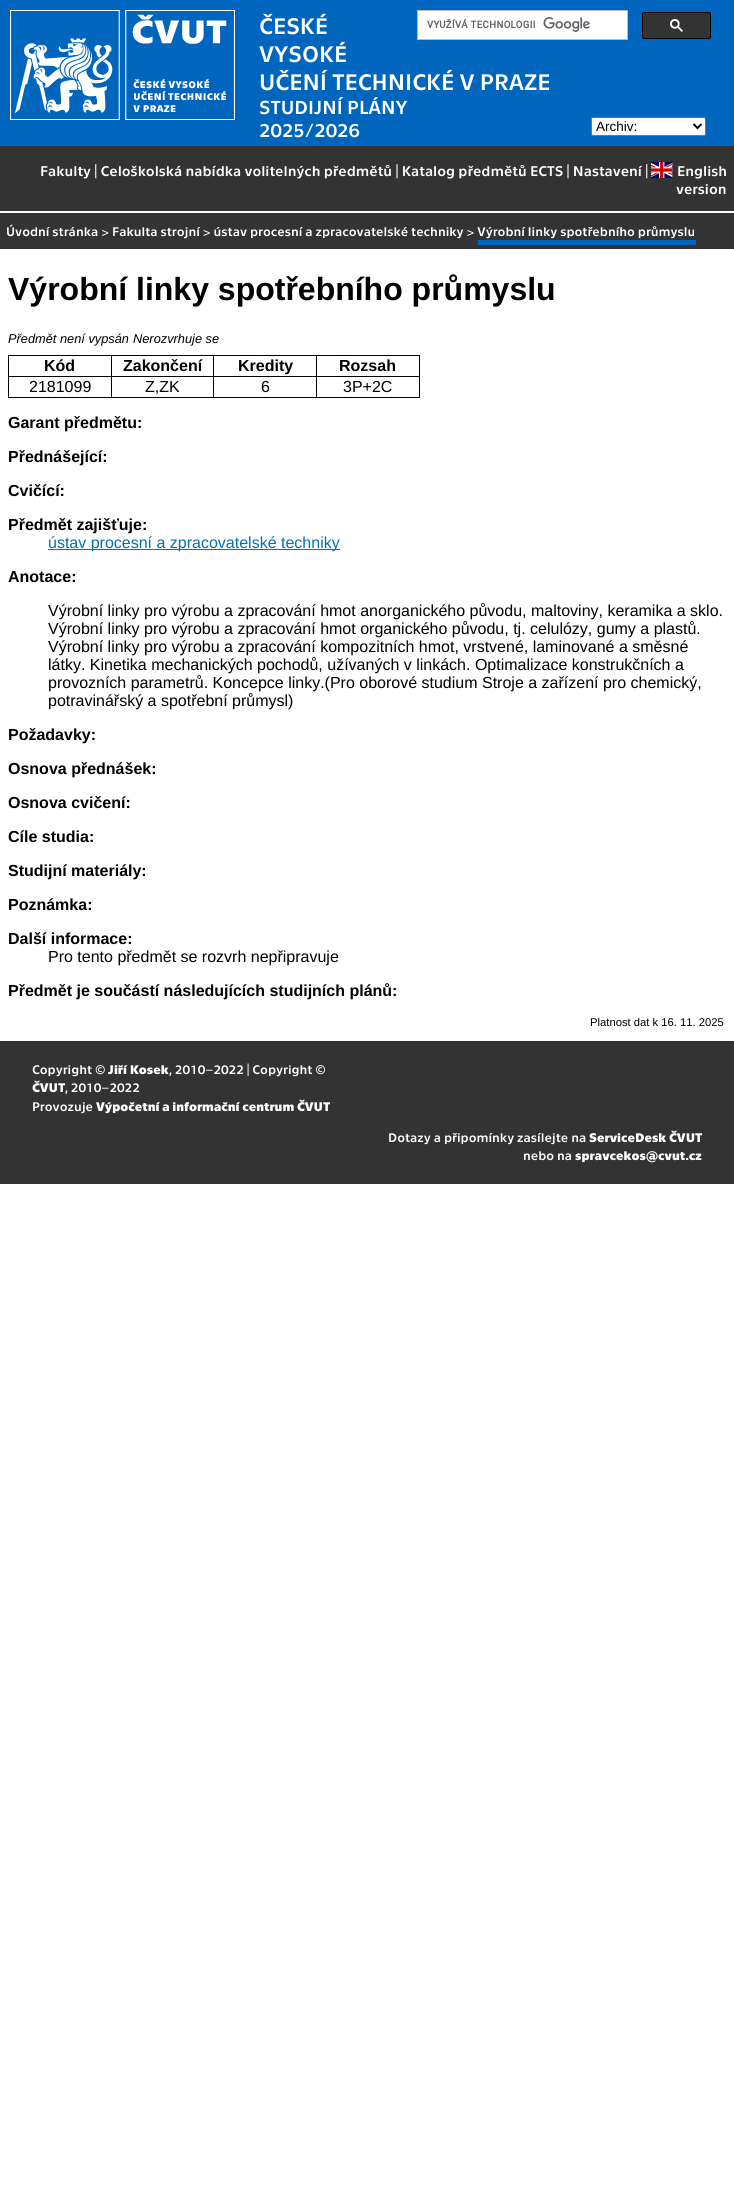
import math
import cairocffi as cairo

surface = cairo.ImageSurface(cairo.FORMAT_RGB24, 734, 2185)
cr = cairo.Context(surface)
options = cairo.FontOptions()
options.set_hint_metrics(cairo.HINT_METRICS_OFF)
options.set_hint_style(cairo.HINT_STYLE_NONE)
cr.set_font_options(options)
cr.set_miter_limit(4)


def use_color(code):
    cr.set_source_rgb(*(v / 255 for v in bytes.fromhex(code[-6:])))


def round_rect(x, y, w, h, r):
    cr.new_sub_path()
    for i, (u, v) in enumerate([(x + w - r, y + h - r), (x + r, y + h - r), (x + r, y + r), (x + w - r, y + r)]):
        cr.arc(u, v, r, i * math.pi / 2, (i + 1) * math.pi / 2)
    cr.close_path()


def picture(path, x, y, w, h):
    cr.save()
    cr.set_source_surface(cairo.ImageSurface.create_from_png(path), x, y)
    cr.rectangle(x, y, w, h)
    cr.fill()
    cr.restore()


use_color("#ffffff")
cr.paint()
use_color("#0065bd")
cr.rectangle(0, 0, 734, 146)
cr.fill()
picture("img1.png", 10, 10, 225, 110)
cr.select_font_face("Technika")
cr.set_font_size(23)
use_color("#ffffff")
cr.move_to(259, 34)
cr.show_text("ČESKÉ")
cr.rectangle(417.5, 10.5, 210, 29)
cr.fill_preserve()
use_color("#bbbbbb")
cr.set_line_width(1)
cr.stroke()
picture("img2.png", 427, 17, 163, 15)
use_color("#333333")
round_rect(642.5, 12.5, 68, 26, 1.5)
cr.fill_preserve()
use_color("#000000")
cr.stroke()
picture("img3.png", 670, 19, 13, 13)
use_color("#ffffff")
cr.move_to(259, 62)
cr.show_text("VYSOKÉ")
cr.move_to(259, 90)
cr.show_text("UČENÍ TECHNICKÉ V PRAZE")
cr.set_font_size(19.25)
cr.move_to(259, 114)
cr.show_text("STUDIJNÍ PLÁNY")
cr.move_to(259, 137)
cr.show_text("2025/2026")
round_rect(591.5, 117.5, 114, 18, 1.5)
cr.fill_preserve()
use_color("#767676")
cr.stroke()
cr.new_path()
cr.move_to(693.5, 124)
cr.line_to(697.5, 128)
cr.line_to(701.5, 124)
use_color("#000000")
cr.set_line_width(2)
cr.stroke()
cr.select_font_face("Liberation Sans")
cr.set_font_size(13.5)
cr.move_to(596, 131)
cr.show_text("Archiv:")
use_color("#333333")
cr.rectangle(0, 146, 734, 65)
cr.fill()
cr.select_font_face("Technika")
cr.set_font_size(14.4)
use_color("#ffffff")
cr.move_to(40, 176)
cr.show_text("Fakulty | Celoškolská nabídka volitelných předmětů | Katalog předmětů ECTS | Nastavení |")
picture("img4.png", 651, 162, 22, 16)
cr.move_to(677, 176)
cr.show_text("English")
cr.move_to(676, 194)
cr.show_text("version")
use_color("#333333")
cr.rectangle(0, 213, 734, 36)
cr.fill()
cr.set_font_size(12.8)
use_color("#ffffff")
cr.move_to(6, 236)
cr.show_text("Úvodní stránka > Fakulta strojní > ústav procesní a zpracovatelské techniky > Výrobní linky spotřebního průmyslu")
use_color("#0065bd")
cr.rectangle(478, 240, 218, 5)
cr.fill()
cr.select_font_face("Liberation Sans", cairo.FONT_SLANT_NORMAL, cairo.FONT_WEIGHT_BOLD)
cr.set_font_size(32)
use_color("#000000")
cr.move_to(8, 300)
cr.show_text("Výrobní linky spotřebního průmyslu")
cr.select_font_face("Liberation Sans", cairo.FONT_SLANT_ITALIC)
cr.set_font_size(12.8)
cr.move_to(8, 343)
cr.show_text("Předmět není vypsán")
cr.move_to(133, 343)
cr.show_text("Nerozvrhuje se")
cr.rectangle(8, 355, 412, 1)
cr.fill()
cr.rectangle(419, 355, 1, 43)
cr.fill()
cr.rectangle(8, 397, 412, 1)
cr.fill()
cr.rectangle(8, 355, 1, 43)
cr.fill()
cr.select_font_face("Liberation Sans", cairo.FONT_SLANT_NORMAL, cairo.FONT_WEIGHT_BOLD)
cr.set_font_size(16)
cr.move_to(44, 371)
cr.show_text("Kód")
cr.rectangle(316, 376, 104, 1)
cr.fill()
cr.rectangle(316, 376, 1, 22)
cr.fill()
cr.rectangle(213, 376, 104, 1)
cr.fill()
cr.rectangle(213, 376, 1, 22)
cr.fill()
cr.rectangle(111, 376, 103, 1)
cr.fill()
cr.rectangle(111, 376, 1, 22)
cr.fill()
cr.rectangle(8, 376, 104, 1)
cr.fill()
cr.rectangle(111, 355, 1, 22)
cr.fill()
cr.move_to(123, 371)
cr.show_text("Zakončení")
cr.rectangle(213, 355, 1, 22)
cr.fill()
cr.move_to(238, 371)
cr.show_text("Kredity")
cr.rectangle(316, 355, 1, 22)
cr.fill()
cr.move_to(339, 371)
cr.show_text("Rozsah")
cr.select_font_face("Liberation Sans")
cr.move_to(29, 392)
cr.show_text("2181099")
cr.move_to(145, 392)
cr.show_text("Z,ZK")
cr.move_to(261, 392)
cr.show_text("6")
cr.move_to(343, 392)
cr.show_text("3P+2C")
cr.select_font_face("Liberation Sans", cairo.FONT_SLANT_NORMAL, cairo.FONT_WEIGHT_BOLD)
cr.move_to(8, 428)
cr.show_text("Garant předmětu:")
cr.move_to(8, 462)
cr.show_text("Přednášející:")
cr.move_to(8, 496)
cr.show_text("Cvičící:")
cr.move_to(8, 530)
cr.show_text("Předmět zajišťuje:")
use_color("#0071b3")
cr.rectangle(48, 549, 292, 1)
cr.fill()
cr.select_font_face("Liberation Sans")
cr.move_to(48, 548)
cr.show_text("ústav procesní a zpracovatelské techniky")
cr.select_font_face("Liberation Sans", cairo.FONT_SLANT_NORMAL, cairo.FONT_WEIGHT_BOLD)
use_color("#000000")
cr.move_to(8, 582)
cr.show_text("Anotace:")
cr.select_font_face("Liberation Sans")
cr.move_to(48, 616)
cr.show_text("Výrobní linky pro výrobu a zpracování hmot anorganického původu, maltoviny, keramika a sklo.")
cr.move_to(48, 634)
cr.show_text("Výrobní linky pro výrobu a zpracování hmot organického původu, tj. celulózy, gumy a plastů.")
cr.move_to(48, 652)
cr.show_text("Výrobní linky pro výrobu a zpracování kompozitních hmot, vrstvené, laminované a směsné")
cr.move_to(48, 670)
cr.show_text("látky. Kinetika mechanických pochodů, užívaných v linkách. Optimalizace konstrukčních a")
cr.move_to(48, 688)
cr.show_text("provozních parametrů. Koncepce linky.(Pro oborové studium Stroje a zařízení pro chemický,")
cr.move_to(48, 706)
cr.show_text("potravinářský a spotřební průmysl)")
cr.select_font_face("Liberation Sans", cairo.FONT_SLANT_NORMAL, cairo.FONT_WEIGHT_BOLD)
cr.move_to(8, 740)
cr.show_text("Požadavky:")
cr.move_to(8, 774)
cr.show_text("Osnova přednášek:")
cr.move_to(8, 808)
cr.show_text("Osnova cvičení:")
cr.move_to(8, 842)
cr.show_text("Cíle studia:")
cr.move_to(8, 876)
cr.show_text("Studijní materiály:")
cr.move_to(8, 910)
cr.show_text("Poznámka:")
cr.move_to(8, 944)
cr.show_text("Další informace:")
cr.select_font_face("Liberation Sans")
cr.move_to(48, 962)
cr.show_text("Pro tento předmět se rozvrh nepřipravuje")
cr.select_font_face("Liberation Sans", cairo.FONT_SLANT_NORMAL, cairo.FONT_WEIGHT_BOLD)
cr.move_to(8, 996)
cr.show_text("Předmět je součástí následujících studijních plánů:")
cr.select_font_face("Liberation Sans")
cr.set_font_size(11.25)
cr.move_to(590, 1026)
cr.show_text("Platnost dat k 16. 11. 2025")
use_color("#333333")
cr.rectangle(0, 1041, 734, 143)
cr.fill()
cr.select_font_face("Technika")
cr.set_font_size(12.8)
use_color("#ffffff")
cr.move_to(32, 1074)
cr.show_text("Copyright ©")
cr.select_font_face("Technika", cairo.FONT_SLANT_NORMAL, cairo.FONT_WEIGHT_BOLD)
cr.move_to(108, 1074)
cr.show_text("Jiří Kosek")
cr.select_font_face("Technika")
cr.move_to(169, 1074)
cr.show_text(", 2010–2022 | Copyright ©")
cr.select_font_face("Technika", cairo.FONT_SLANT_NORMAL, cairo.FONT_WEIGHT_BOLD)
cr.move_to(32, 1092)
cr.show_text("ČVUT")
cr.select_font_face("Technika")
cr.move_to(65, 1092)
cr.show_text(", 2010–2022")
cr.move_to(32, 1111)
cr.show_text("Provozuje")
cr.select_font_face("Technika", cairo.FONT_SLANT_NORMAL, cairo.FONT_WEIGHT_BOLD)
cr.move_to(96, 1111)
cr.show_text("Výpočetní a informační centrum ČVUT")
cr.select_font_face("Technika")
cr.move_to(388, 1142)
cr.show_text("Dotazy a připomínky zasílejte na")
cr.select_font_face("Technika", cairo.FONT_SLANT_NORMAL, cairo.FONT_WEIGHT_BOLD)
cr.move_to(589, 1142)
cr.show_text("ServiceDesk ČVUT")
cr.select_font_face("Technika")
cr.move_to(523, 1160)
cr.show_text("nebo na")
cr.select_font_face("Technika", cairo.FONT_SLANT_NORMAL, cairo.FONT_WEIGHT_BOLD)
cr.move_to(575, 1160)
cr.show_text("spravcekos@cvut.cz")
surface.write_to_png("result.png")
